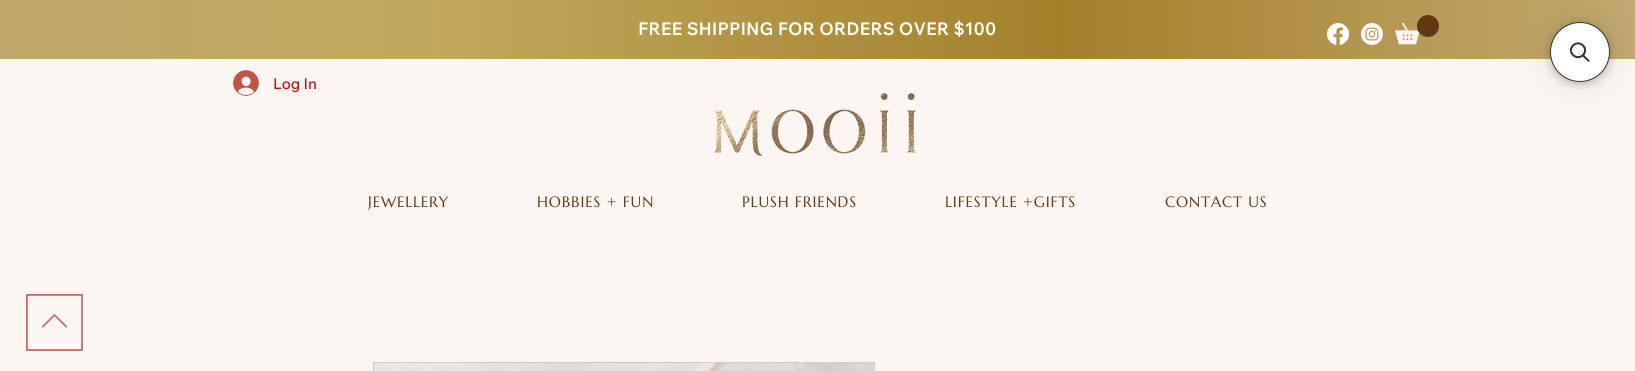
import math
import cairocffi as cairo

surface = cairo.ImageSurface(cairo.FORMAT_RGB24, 1635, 371)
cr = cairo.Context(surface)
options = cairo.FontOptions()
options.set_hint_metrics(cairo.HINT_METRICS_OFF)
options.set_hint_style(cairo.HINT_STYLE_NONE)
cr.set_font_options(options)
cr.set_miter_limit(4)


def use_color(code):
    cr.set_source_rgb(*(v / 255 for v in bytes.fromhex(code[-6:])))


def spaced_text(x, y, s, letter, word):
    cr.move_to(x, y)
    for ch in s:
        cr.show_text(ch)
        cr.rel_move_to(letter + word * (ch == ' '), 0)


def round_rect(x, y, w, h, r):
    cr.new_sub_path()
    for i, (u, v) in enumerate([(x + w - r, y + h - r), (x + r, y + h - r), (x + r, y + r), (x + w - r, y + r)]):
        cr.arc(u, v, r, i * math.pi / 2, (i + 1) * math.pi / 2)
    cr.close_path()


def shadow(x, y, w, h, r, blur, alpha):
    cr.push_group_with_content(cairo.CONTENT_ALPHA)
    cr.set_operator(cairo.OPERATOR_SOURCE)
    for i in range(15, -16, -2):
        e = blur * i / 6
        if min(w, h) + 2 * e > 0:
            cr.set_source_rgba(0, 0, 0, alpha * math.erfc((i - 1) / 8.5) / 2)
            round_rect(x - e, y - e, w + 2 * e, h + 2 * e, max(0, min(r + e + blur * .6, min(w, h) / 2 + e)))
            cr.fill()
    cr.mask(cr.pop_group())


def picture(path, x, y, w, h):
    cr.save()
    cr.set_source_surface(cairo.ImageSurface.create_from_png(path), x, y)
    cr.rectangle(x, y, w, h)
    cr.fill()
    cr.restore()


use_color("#fcf6f2")
cr.paint()
gradient = cairo.LinearGradient(0, 30, 1635, 29)
gradient.add_color_stop_rgba(0, 0.757, 0.655, 0.427, 1)
gradient.add_color_stop_rgba(0.26, 0.761, 0.659, 0.369, 1)
gradient.add_color_stop_rgba(0.65, 0.643, 0.502, 0.169, 1)
gradient.add_color_stop_rgba(1, 0.765, 0.663, 0.443, 1)
cr.set_source(gradient)
cr.rectangle(0, 0, 1635, 59)
cr.fill()
cr.select_font_face("Wix Madefor Text", cairo.FONT_SLANT_NORMAL, cairo.FONT_WEIGHT_BOLD)
cr.set_font_size(17)
use_color("#fffffe")
spaced_text(638, 35, "FREE SHIPPING FOR ORDERS OVER $100", 0.5, 0)
picture("img1.png", 1327, 23, 22, 22)
picture("img2.png", 1361, 23, 22, 22)
picture("img3.png", 1395, 15, 44, 30)
picture("img4.png", 233, 70, 26, 26)
cr.select_font_face("Wix Madefor Text Medium")
cr.set_font_size(15)
use_color("#bd1515")
cr.move_to(273, 89)
cr.show_text("Log In")
picture("img5.png", 714, 93, 202, 64)
cr.select_font_face("Marcellus")
use_color("#603813")
spaced_text(368, 207, "JEWELLERY", 0.9, 0)
spaced_text(537, 207, "HOBBIES + FUN", 0.9, 0)
spaced_text(742, 207, "PLUSH FRIENDS", 0.9, 0)
spaced_text(945, 207, "LIFESTYLE +GIFTS", 0.9, 0)
spaced_text(1165, 207, "CONTACT US", 0.9, 0)
picture("img6.png", 26, 294, 57, 57)
cr.rectangle(373.5, 362.5, 501, 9)
use_color("#d5c7ba")
cr.set_line_width(1)
cr.stroke()
picture("img7.png", 374, 363, 500, 8)
use_color("#000000")
shadow(1550, 26, 60, 60, 30, 4, 0.05)
shadow(1550, 24, 60, 60, 30, 4, 0.15)
shadow(1550, 22, 60, 60, 30, 15, 0.1)
use_color("#ffffff")
cr.arc(1580, 52, 29.5, 0, 2 * math.pi)
cr.fill_preserve()
use_color("#333333")
cr.stroke()
cr.new_path()
cr.move_to(1573, 45.5)
cr.curve_to(1579.5, 39, 1589.5, 48.5, 1583, 55)
cr.curve_to(1576.5, 61.5, 1566.5, 52, 1573, 45.5)
cr.close_path()
cr.set_line_width(2)
cr.stroke()
cr.new_path()
cr.move_to(1582, 56)
cr.line_to(1583.5, 54.5)
cr.line_to(1589.5, 60.5)
cr.curve_to(1590, 61.5, 1588.5, 62.5, 1588, 61.5)
cr.close_path()
cr.fill()
surface.write_to_png("result.png")
